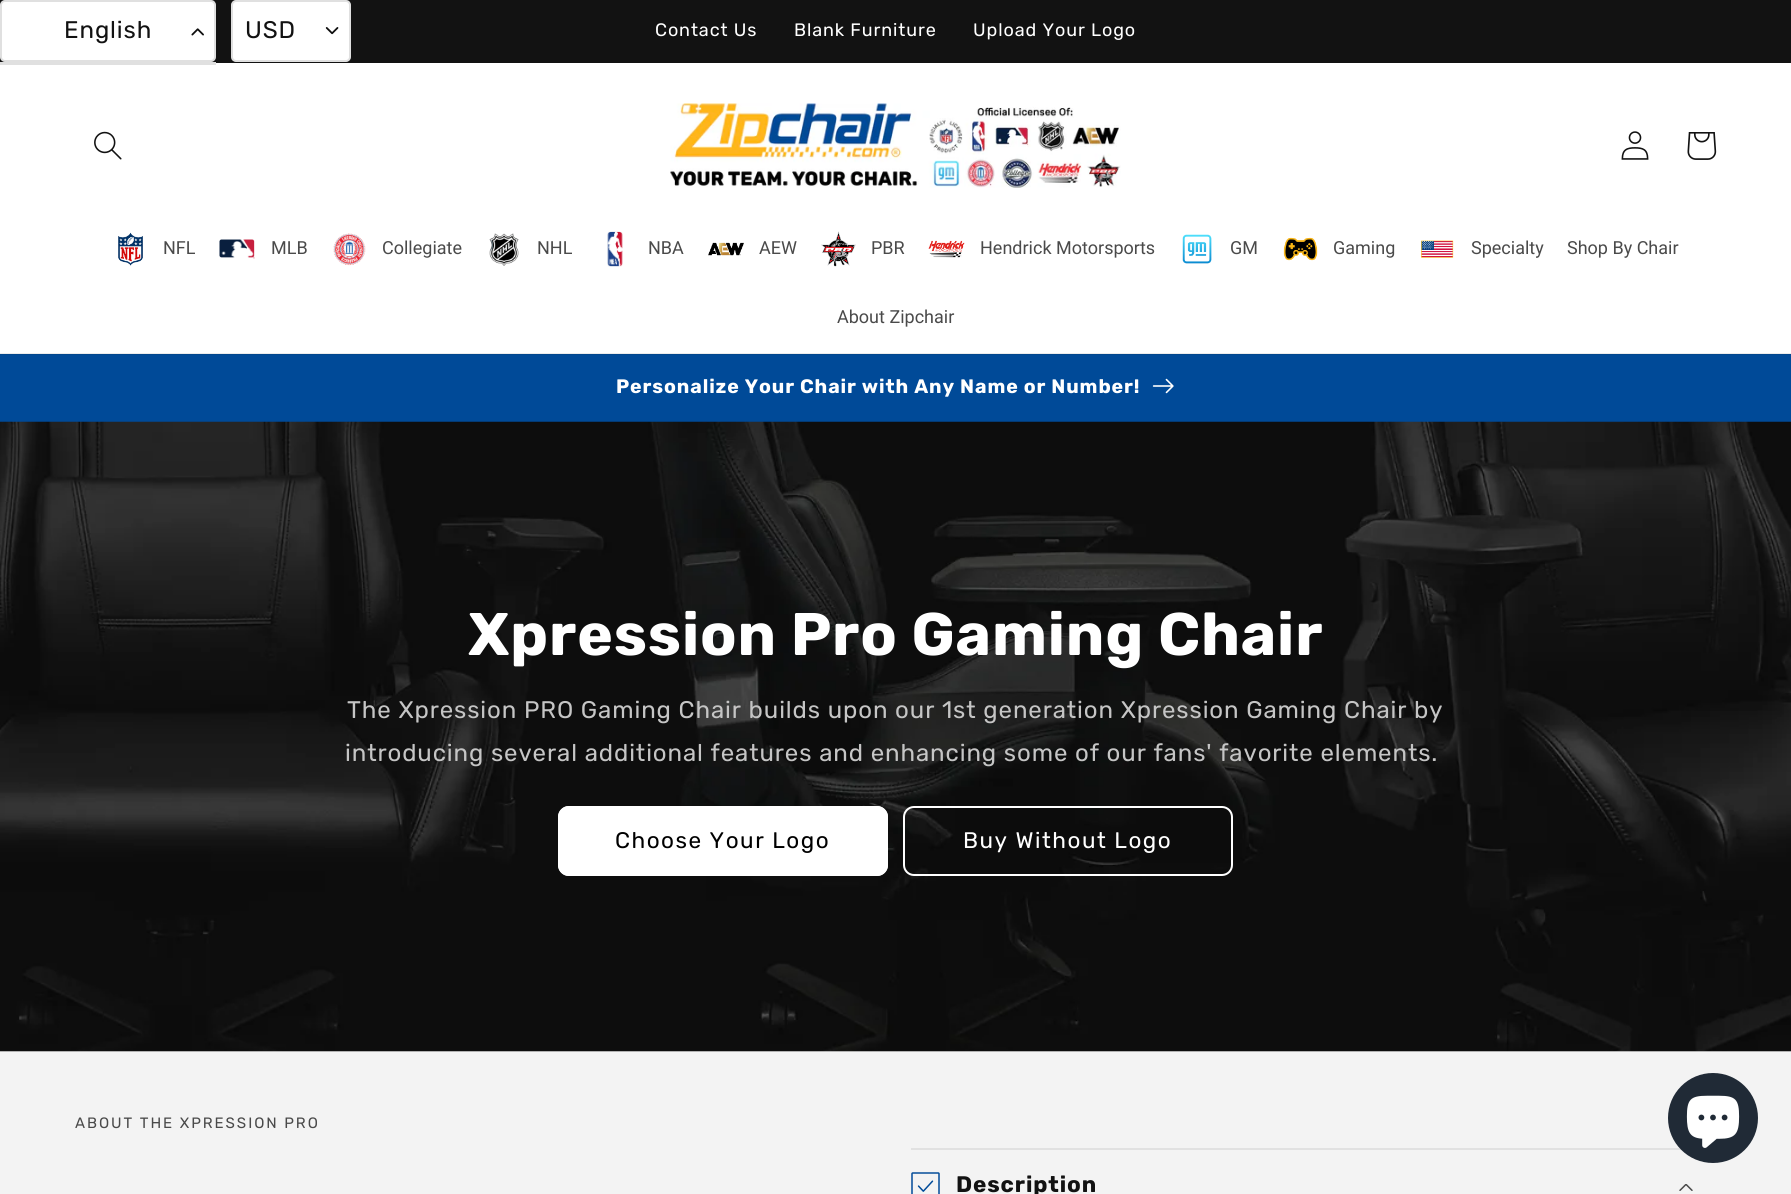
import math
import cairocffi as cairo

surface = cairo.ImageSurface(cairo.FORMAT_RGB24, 1791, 1194)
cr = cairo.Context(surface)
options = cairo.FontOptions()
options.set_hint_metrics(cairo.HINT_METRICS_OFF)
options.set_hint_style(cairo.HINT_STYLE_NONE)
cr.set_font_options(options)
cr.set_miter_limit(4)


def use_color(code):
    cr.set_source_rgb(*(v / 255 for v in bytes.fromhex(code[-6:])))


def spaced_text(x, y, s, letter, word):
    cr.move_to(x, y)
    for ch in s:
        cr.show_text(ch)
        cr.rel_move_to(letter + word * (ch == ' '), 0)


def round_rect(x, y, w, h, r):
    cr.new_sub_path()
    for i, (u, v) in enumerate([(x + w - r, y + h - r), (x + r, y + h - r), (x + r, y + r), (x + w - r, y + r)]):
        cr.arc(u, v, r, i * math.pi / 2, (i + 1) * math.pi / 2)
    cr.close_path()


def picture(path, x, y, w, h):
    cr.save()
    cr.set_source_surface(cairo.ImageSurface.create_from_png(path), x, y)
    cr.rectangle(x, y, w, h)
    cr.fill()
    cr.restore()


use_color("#ffffff")
cr.paint()
use_color("#ececec")
cr.rectangle(0, 353, 1791, 1)
cr.fill()
use_color("#121212")
cr.rectangle(0, 0, 1791, 63)
cr.fill()
use_color("#ffffff")
round_rect(1, 1, 214, 60, 4)
cr.fill_preserve()
use_color("#e0e0e0")
cr.stroke()
cr.select_font_face("Rubik")
cr.set_font_size(24)
use_color("#121212")
spaced_text(64, 38, "English", 0.9, 0)
picture("img1.png", 191, 28, 13, 8)
use_color("#e0e0e0")
cr.rectangle(0, 62, 216, 3)
cr.fill()
use_color("#ffffff")
round_rect(232, 1, 118, 60, 4)
cr.fill_preserve()
use_color("#e0e0e0")
cr.stroke()
use_color("#121212")
spaced_text(245, 38, "USD", 0.9, 0)
picture("img2.png", 325, 27, 14, 8)
cr.set_font_size(18)
use_color("#ffffff")
spaced_text(655, 36, "Contact Us", 0.9, 0)
spaced_text(794, 36, "Blank Furniture", 0.9, 0)
spaced_text(973, 36, "Upload Your Logo", 0.9, 0)
picture("img3.png", 94, 131, 28, 29)
picture("img4.png", 670, 103, 451, 85)
picture("img5.png", 1621, 131, 28, 29)
picture("img6.png", 1687, 132, 30, 28)
picture("img7.png", 118, 232, 25, 34)
cr.select_font_face("Roboto")
use_color("#4a4a4a")
cr.move_to(163, 254)
cr.show_text("NFL")
picture("img8.png", 219, 239, 36, 20)
cr.move_to(271, 254)
cr.show_text("MLB")
picture("img9.png", 333, 233, 33, 33)
cr.move_to(382, 254)
cr.show_text("Collegiate")
picture("img10.png", 489, 233, 30, 33)
cr.move_to(537, 254)
cr.show_text("NHL")
picture("img11.png", 607, 231, 16, 36)
cr.move_to(648, 254)
cr.show_text("NBA")
picture("img12.png", 708, 242, 36, 14)
cr.move_to(759, 254)
cr.show_text("AEW")
picture("img13.png", 821, 231, 35, 36)
cr.move_to(871, 254)
cr.show_text("PBR")
picture("img14.png", 928, 240, 37, 18)
cr.move_to(980, 254)
cr.show_text("Hendrick Motorsports")
picture("img15.png", 1182, 234, 30, 30)
cr.move_to(1230, 254)
cr.show_text("GM")
picture("img16.png", 1283, 237, 35, 24)
cr.move_to(1333, 254)
cr.show_text("Gaming")
picture("img17.png", 1421, 240, 33, 18)
cr.move_to(1471, 254)
cr.show_text("Specialty")
cr.move_to(1567, 254)
cr.show_text("Shop By Chair")
cr.move_to(837, 323)
cr.show_text("About Zipchair")
use_color("#004a98")
cr.rectangle(0, 355, 1791, 67)
cr.fill()
use_color("#01468d")
cr.rectangle(0, 354, 1791, 1)
cr.fill()
cr.select_font_face("Rubik", cairo.FONT_SLANT_NORMAL, cairo.FONT_WEIGHT_BOLD)
cr.set_font_size(19.5)
use_color("#ffffff")
spaced_text(616, 393, "Personalize Your Chair with Any Name or Number!", 0.9, 0)
picture("img18.png", 1152, 378, 22, 16)
use_color("#e8e8e8")
cr.rectangle(0, 1051, 1791, 1)
cr.fill()
picture("img19.png", 0, 421, 1791, 631)
cr.set_font_size(60)
use_color("#ffffff")
spaced_text(468, 655, "Xpression Pro Gaming Chair", 0.9, 0)
cr.select_font_face("Rubik")
cr.set_font_size(24)
use_color("#c5c5c5")
spaced_text(347, 718, "The Xpression PRO Gaming Chair builds upon our 1st generation Xpression Gaming Chair by", 0.9, 0)
spaced_text(345, 761, "introducing several additional features and enhancing some of our fans' favorite elements.", 0.9, 0)
use_color("#ffffff")
round_rect(558, 806, 330, 70, 11)
cr.fill()
round_rect(559, 807, 328, 68, 10)
cr.stroke()
cr.set_font_size(22.5)
use_color("#000000")
spaced_text(615, 848, "Choose Your Logo", 1.5, 0)
round_rect(904, 807, 328, 68, 10)
use_color("#ffffff")
cr.stroke()
spaced_text(963, 848, "Buy Without Logo", 1.5, 0)
use_color("#f3f3f3")
cr.rectangle(0, 1052, 1791, 142)
cr.fill()
cr.set_font_size(15)
use_color("#4a4a4a")
spaced_text(75, 1128, "ABOUT THE XPRESSION PRO", 1.95, 0)
use_color("#e1e1e1")
cr.rectangle(911, 1148, 771, 2)
cr.fill()
picture("img20.png", 911, 1172, 29, 22)
cr.select_font_face("Rubik", cairo.FONT_SLANT_NORMAL, cairo.FONT_WEIGHT_BOLD)
cr.set_font_size(22.5)
use_color("#121212")
spaced_text(956, 1192, "Description", 0.9, 0)
picture("img21.png", 1679, 1184, 14, 7)
use_color("#202a36")
cr.arc(1713, 1118, 45, 0, 2 * math.pi)
cr.fill()
picture("img22.png", 1686, 1095, 54, 53)
surface.write_to_png("result.png")
